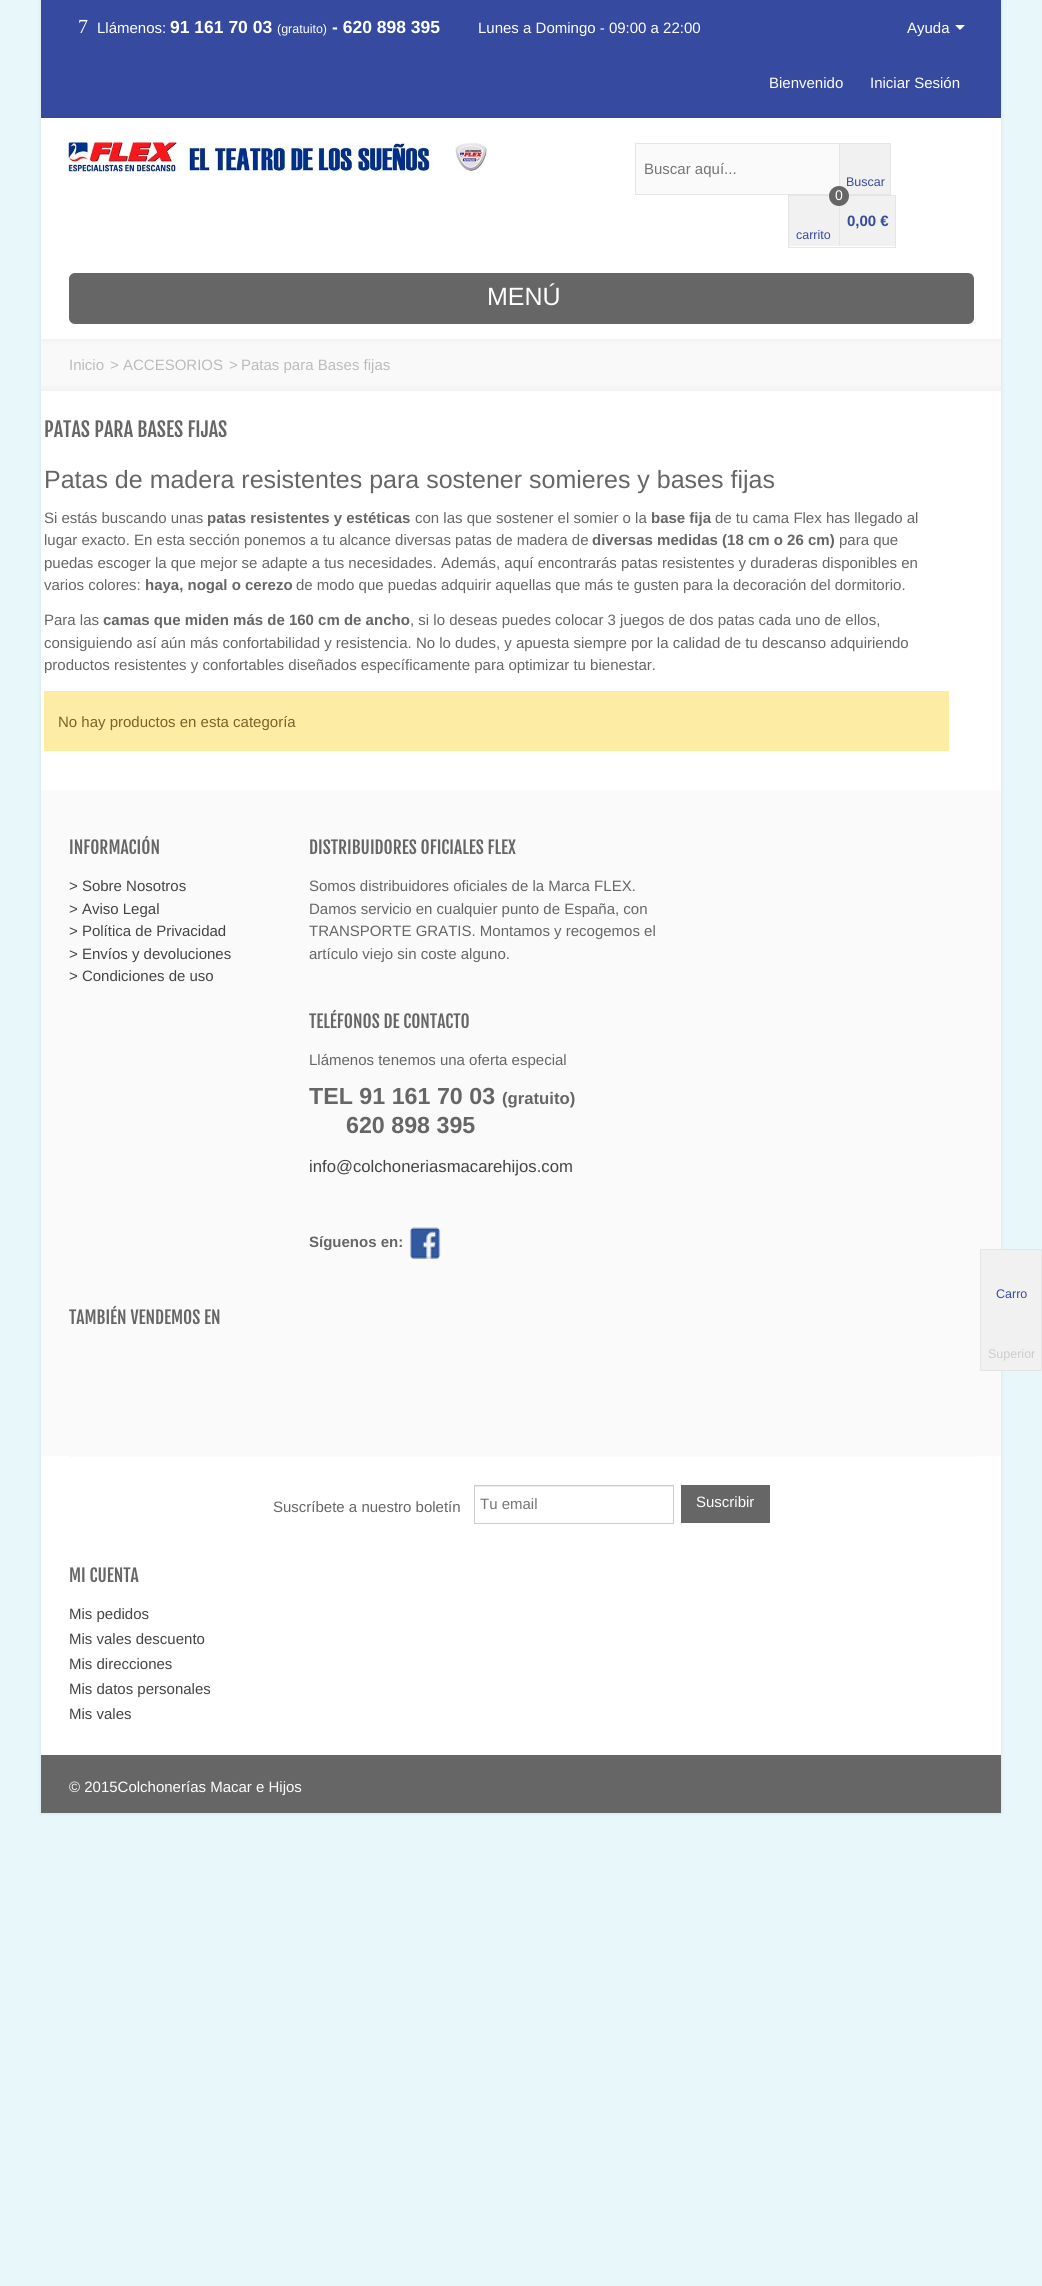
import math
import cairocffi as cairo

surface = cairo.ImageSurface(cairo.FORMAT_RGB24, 1042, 2286)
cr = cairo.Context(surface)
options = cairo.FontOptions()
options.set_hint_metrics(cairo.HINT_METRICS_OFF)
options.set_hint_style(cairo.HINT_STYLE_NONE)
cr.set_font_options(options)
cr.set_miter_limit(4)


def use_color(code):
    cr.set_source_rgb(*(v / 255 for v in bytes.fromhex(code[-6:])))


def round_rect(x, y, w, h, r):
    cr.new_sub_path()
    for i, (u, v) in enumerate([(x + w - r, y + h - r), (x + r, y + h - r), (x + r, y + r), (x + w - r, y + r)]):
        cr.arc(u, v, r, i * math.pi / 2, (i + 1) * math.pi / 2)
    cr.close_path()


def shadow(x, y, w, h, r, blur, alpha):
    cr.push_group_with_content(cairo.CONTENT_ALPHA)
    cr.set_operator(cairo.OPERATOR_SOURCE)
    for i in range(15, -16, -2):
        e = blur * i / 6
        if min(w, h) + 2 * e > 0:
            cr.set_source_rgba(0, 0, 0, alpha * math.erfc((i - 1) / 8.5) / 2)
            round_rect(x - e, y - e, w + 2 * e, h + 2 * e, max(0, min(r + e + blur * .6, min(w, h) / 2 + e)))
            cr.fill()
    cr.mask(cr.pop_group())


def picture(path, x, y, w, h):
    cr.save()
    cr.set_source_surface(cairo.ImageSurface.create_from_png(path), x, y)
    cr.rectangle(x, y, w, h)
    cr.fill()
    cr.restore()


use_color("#e8f8fa")
cr.paint()
use_color("#000000")
shadow(41, 0, 960, 1813, 0, 2, 0.1)
use_color("#ffffff")
cr.rectangle(41, 118, 960, 1637)
cr.fill()
use_color("#364a9f")
cr.rectangle(41, 0, 960, 118)
cr.fill()
cr.select_font_face("Liberation Serif")
cr.set_font_size(20)
use_color("#ffffff")
cr.move_to(78, 33)
cr.show_text("7")
cr.select_font_face("Liberation Sans")
cr.set_font_size(15)
cr.move_to(97, 33)
cr.show_text("Llámenos:")
cr.select_font_face("Liberation Sans", cairo.FONT_SLANT_NORMAL, cairo.FONT_WEIGHT_BOLD)
cr.set_font_size(17.5)
cr.move_to(170, 33)
cr.show_text("91 161 70 03")
cr.select_font_face("Liberation Sans")
cr.set_font_size(12.5)
cr.move_to(277, 33)
cr.show_text("(gratuito)")
cr.select_font_face("Liberation Sans", cairo.FONT_SLANT_NORMAL, cairo.FONT_WEIGHT_BOLD)
cr.set_font_size(17.5)
cr.move_to(332, 33)
cr.show_text("- 620 898 395")
cr.select_font_face("Liberation Sans")
cr.set_font_size(15)
cr.move_to(478, 33)
cr.show_text("Lunes a Domingo - 09:00 a 22:00")
cr.move_to(907, 33)
cr.show_text("Ayuda")
cr.new_path()
cr.move_to(955, 25)
cr.line_to(965, 25)
cr.line_to(960, 30)
cr.close_path()
cr.fill()
cr.move_to(769, 88)
cr.show_text("Bienvenido")
cr.move_to(870, 88)
cr.show_text("Iniciar Sesión")
picture("img1.png", 68, 142, 419, 30)
use_color("#fafafa")
cr.rectangle(636, 144, 203, 50)
cr.fill()
use_color("#e5e5e5")
cr.rectangle(635, 143, 204, 1)
cr.fill()
cr.rectangle(635, 194, 195, 1)
cr.fill()
cr.rectangle(635, 143, 1, 52)
cr.fill()
use_color("#757575")
cr.move_to(644, 174)
cr.show_text("Buscar aquí...")
use_color("#f1f1f1")
cr.rectangle(839.5, 143.5, 51, 51)
cr.fill_preserve()
use_color("#e5e5e5")
cr.set_line_width(1)
cr.stroke()
cr.set_font_size(12.5)
use_color("#364a9f")
cr.move_to(846, 186)
cr.show_text("Buscar")
cr.rectangle(788.5, 195.5, 107, 52)
use_color("#e5e5e5")
cr.stroke()
use_color("#f1f1f1")
cr.rectangle(789, 196, 50, 50)
cr.fill()
cr.rectangle(840, 196, 55, 50)
cr.fill()
use_color("#e5e5e5")
cr.rectangle(839, 205, 1, 41)
cr.fill()
use_color("#666666")
cr.arc(839, 196, 10, 0, 2 * math.pi)
cr.fill()
cr.set_font_size(14)
use_color("#ffffff")
cr.move_to(835, 200)
cr.show_text("0")
cr.set_font_size(12.5)
use_color("#364a9f")
cr.move_to(796, 239)
cr.show_text("carrito")
cr.select_font_face("Liberation Sans", cairo.FONT_SLANT_NORMAL, cairo.FONT_WEIGHT_BOLD)
cr.set_font_size(15)
cr.move_to(847, 226)
cr.show_text("0,00 €")
use_color("#666666")
round_rect(69, 273, 905, 51, 6)
cr.fill()
cr.select_font_face("Liberation Sans")
cr.set_font_size(25)
use_color("#ffffff")
cr.move_to(487, 305)
cr.show_text("MENÚ")
gradient = cairo.LinearGradient(521, 339, 521, 391)
gradient.add_color_stop_rgba(0, 0.949, 0.949, 0.949, 1)
gradient.add_color_stop_rgba(0.1, 0.976, 0.976, 0.976, 1)
gradient.add_color_stop_rgba(0.85, 0.976, 0.976, 0.976, 1)
gradient.add_color_stop_rgba(1, 0.949, 0.949, 0.949, 1)
cr.set_source(gradient)
cr.rectangle(41, 339, 960, 52)
cr.fill()
cr.set_font_size(15)
use_color("#bbbbbb")
cr.move_to(69, 370)
cr.show_text("Inicio")
cr.move_to(110, 370)
cr.show_text(">")
cr.move_to(123, 370)
cr.show_text("ACCESORIOS")
cr.move_to(229, 370)
cr.show_text(">")
cr.move_to(241, 370)
cr.show_text("Patas para Bases fijas")
cr.select_font_face("Fjalla One")
cr.set_font_size(20)
use_color("#666666")
cr.move_to(44, 437)
cr.show_text("PATAS PARA BASES FIJAS")
cr.select_font_face("Liberation Sans")
cr.set_font_size(25)
cr.move_to(44, 488)
cr.show_text("Patas de madera resistentes para sostener somieres y bases fijas")
cr.set_font_size(15)
cr.move_to(44, 523)
cr.show_text("Si estás buscando unas")
cr.select_font_face("Liberation Sans", cairo.FONT_SLANT_NORMAL, cairo.FONT_WEIGHT_BOLD)
cr.move_to(207, 523)
cr.show_text("patas resistentes y estéticas")
cr.select_font_face("Liberation Sans")
cr.move_to(415, 523)
cr.show_text("con las que sostener el somier o la")
cr.select_font_face("Liberation Sans", cairo.FONT_SLANT_NORMAL, cairo.FONT_WEIGHT_BOLD)
cr.move_to(651, 523)
cr.show_text("base fija")
cr.select_font_face("Liberation Sans")
cr.move_to(715, 523)
cr.show_text("de tu cama Flex has llegado al")
cr.move_to(44, 545)
cr.show_text("lugar exacto. En esta sección ponemos a tu alcance diversas patas de madera de")
cr.select_font_face("Liberation Sans", cairo.FONT_SLANT_NORMAL, cairo.FONT_WEIGHT_BOLD)
cr.move_to(592, 545)
cr.show_text("diversas medidas (18 cm o 26 cm)")
cr.select_font_face("Liberation Sans")
cr.move_to(839, 545)
cr.show_text("para que")
cr.move_to(44, 568)
cr.show_text("puedas escoger la que mejor se adapte a tus necesidades. Además, aquí encontrarás patas resistentes y duraderas disponibles en")
cr.move_to(44, 590)
cr.show_text("varios colores:")
cr.select_font_face("Liberation Sans", cairo.FONT_SLANT_NORMAL, cairo.FONT_WEIGHT_BOLD)
cr.move_to(145, 590)
cr.show_text("haya, nogal o cerezo")
cr.select_font_face("Liberation Sans")
cr.move_to(296, 590)
cr.show_text("de modo que puedas adquirir aquellas que más te gusten para la decoración del dormitorio.")
cr.move_to(44, 625)
cr.show_text("Para las")
cr.select_font_face("Liberation Sans", cairo.FONT_SLANT_NORMAL, cairo.FONT_WEIGHT_BOLD)
cr.move_to(103, 625)
cr.show_text("camas que miden más de 160 cm de ancho")
cr.select_font_face("Liberation Sans")
cr.move_to(410, 625)
cr.show_text(", si lo deseas puedes colocar 3 juegos de dos patas cada uno de ellos,")
cr.move_to(44, 648)
cr.show_text("consiguiendo así aún más confortabilidad y resistencia. No lo dudes, y apuesta siempre por la calidad de tu descanso adquiriendo")
cr.move_to(44, 670)
cr.show_text("productos resistentes y confortables diseñados específicamente para optimizar tu bienestar.")
use_color("#fdeda4")
cr.rectangle(44, 691, 905, 60)
cr.fill()
use_color("#7c622a")
cr.move_to(58, 727)
cr.show_text("No hay productos en esta categoría")
use_color("#fafafa")
cr.rectangle(41, 790, 960, 666)
cr.fill()
cr.select_font_face("Fjalla One")
cr.set_font_size(17.5)
use_color("#666666")
cr.move_to(69, 854)
cr.show_text("INFORMACIÓN")
cr.select_font_face("Liberation Sans")
cr.set_font_size(15)
use_color("#444444")
cr.move_to(69, 891)
cr.show_text("> Sobre Nosotros")
cr.move_to(69, 914)
cr.show_text("> Aviso Legal")
cr.move_to(69, 936)
cr.show_text("> Política de Privacidad")
cr.move_to(69, 959)
cr.show_text("> Envíos y devoluciones")
cr.move_to(69, 981)
cr.show_text("> Condiciones de uso")
cr.select_font_face("Fjalla One")
cr.set_font_size(17.5)
use_color("#666666")
cr.move_to(309, 854)
cr.show_text("DISTRIBUIDORES OFICIALES FLEX")
cr.select_font_face("Liberation Sans")
cr.set_font_size(15)
cr.move_to(309, 891)
cr.show_text("Somos distribuidores oficiales de la Marca FLEX.")
cr.move_to(309, 914)
cr.show_text("Damos servicio en cualquier punto de España, con")
cr.move_to(309, 936)
cr.show_text("TRANSPORTE GRATIS. Montamos y recogemos el")
cr.move_to(309, 959)
cr.show_text("artículo viejo sin coste alguno.")
cr.select_font_face("Fjalla One")
cr.set_font_size(17.5)
cr.move_to(309, 1028)
cr.show_text("TELÉFONOS DE CONTACTO")
cr.select_font_face("Liberation Sans")
cr.set_font_size(15)
cr.move_to(309, 1065)
cr.show_text("Llámenos tenemos una oferta especial")
cr.select_font_face("Liberation Sans", cairo.FONT_SLANT_NORMAL, cairo.FONT_WEIGHT_BOLD)
cr.set_font_size(23.25)
cr.move_to(309, 1104)
cr.show_text("TEL 91 161 70 03")
cr.set_font_size(16.7)
cr.move_to(502, 1104)
cr.show_text("(gratuito)")
cr.set_font_size(23.25)
cr.move_to(346, 1133)
cr.show_text("620 898 395")
cr.select_font_face("Liberation Sans")
cr.set_font_size(16.7)
use_color("#444444")
cr.move_to(309, 1172)
cr.show_text("info@colchoneriasmacarehijos.com")
cr.select_font_face("Liberation Sans", cairo.FONT_SLANT_NORMAL, cairo.FONT_WEIGHT_BOLD)
cr.set_font_size(15)
use_color("#666666")
cr.move_to(309, 1247)
cr.show_text("Síguenos en:")
picture("img2.png", 409, 1227, 32, 33)
cr.select_font_face("Fjalla One")
cr.set_font_size(17.5)
cr.move_to(69, 1324)
cr.show_text("TAMBIÉN VENDEMOS EN")
use_color("#fafafa")
cr.rectangle(69, 1456, 905, 1)
cr.fill()
cr.select_font_face("Liberation Sans")
cr.set_font_size(15)
use_color("#666666")
cr.move_to(273, 1512)
cr.show_text("Suscríbete a nuestro boletín")
use_color("#ececec")
cr.rectangle(475, 1486, 198, 1)
cr.fill()
cr.rectangle(474.5, 1485.5, 199, 38)
use_color("#cccccc")
cr.stroke()
use_color("#757575")
cr.move_to(480, 1509)
cr.show_text("Tu email")
use_color("#666666")
cr.rectangle(681, 1485, 89, 38)
cr.fill()
use_color("#ffffff")
cr.move_to(696, 1507)
cr.show_text("Suscribir")
cr.select_font_face("Fjalla One")
cr.set_font_size(17.5)
use_color("#666666")
cr.move_to(69, 1582)
cr.show_text("MI CUENTA")
cr.select_font_face("Liberation Sans")
cr.set_font_size(15)
use_color("#444444")
cr.move_to(69, 1619)
cr.show_text("Mis pedidos")
cr.move_to(69, 1644)
cr.show_text("Mis vales descuento")
cr.move_to(69, 1669)
cr.show_text("Mis direcciones")
cr.move_to(69, 1694)
cr.show_text("Mis datos personales")
cr.move_to(69, 1719)
cr.show_text("Mis vales")
use_color("#666666")
cr.rectangle(41, 1755, 960, 58)
cr.fill()
use_color("#ffffff")
cr.move_to(69, 1792)
cr.show_text("© 2015Colchonerías Macar e Hijos")
use_color("#f1f1f1")
cr.rectangle(981, 1250, 60, 120)
cr.fill()
use_color("#e5e5e5")
cr.rectangle(980, 1249, 62, 1)
cr.fill()
cr.rectangle(1041, 1249, 1, 122)
cr.fill()
cr.rectangle(980, 1370, 62, 1)
cr.fill()
cr.rectangle(980, 1250, 1, 120)
cr.fill()
cr.set_font_size(12.5)
use_color("#364a9f")
cr.move_to(996, 1298)
cr.show_text("Carro")
use_color("#cccccc")
cr.move_to(988, 1358)
cr.show_text("Superior")
surface.write_to_png("result.png")
